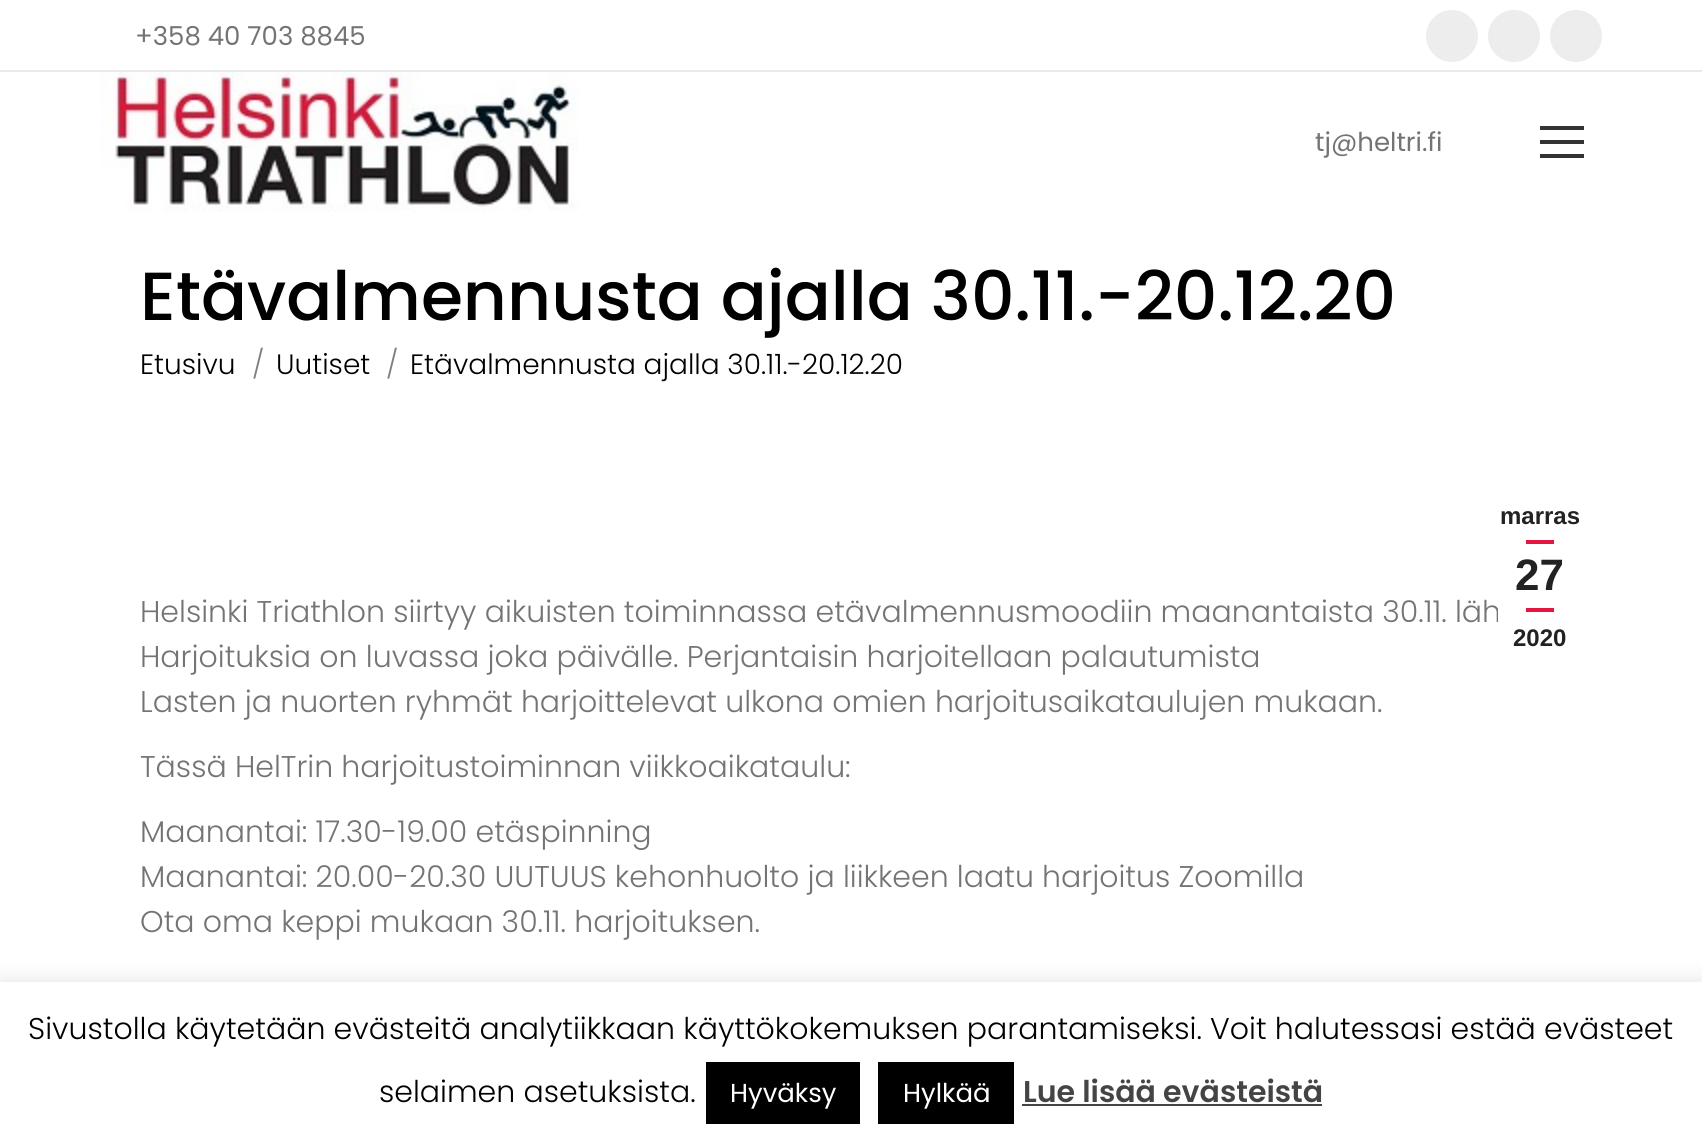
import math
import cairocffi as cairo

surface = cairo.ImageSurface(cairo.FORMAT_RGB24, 1702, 1148)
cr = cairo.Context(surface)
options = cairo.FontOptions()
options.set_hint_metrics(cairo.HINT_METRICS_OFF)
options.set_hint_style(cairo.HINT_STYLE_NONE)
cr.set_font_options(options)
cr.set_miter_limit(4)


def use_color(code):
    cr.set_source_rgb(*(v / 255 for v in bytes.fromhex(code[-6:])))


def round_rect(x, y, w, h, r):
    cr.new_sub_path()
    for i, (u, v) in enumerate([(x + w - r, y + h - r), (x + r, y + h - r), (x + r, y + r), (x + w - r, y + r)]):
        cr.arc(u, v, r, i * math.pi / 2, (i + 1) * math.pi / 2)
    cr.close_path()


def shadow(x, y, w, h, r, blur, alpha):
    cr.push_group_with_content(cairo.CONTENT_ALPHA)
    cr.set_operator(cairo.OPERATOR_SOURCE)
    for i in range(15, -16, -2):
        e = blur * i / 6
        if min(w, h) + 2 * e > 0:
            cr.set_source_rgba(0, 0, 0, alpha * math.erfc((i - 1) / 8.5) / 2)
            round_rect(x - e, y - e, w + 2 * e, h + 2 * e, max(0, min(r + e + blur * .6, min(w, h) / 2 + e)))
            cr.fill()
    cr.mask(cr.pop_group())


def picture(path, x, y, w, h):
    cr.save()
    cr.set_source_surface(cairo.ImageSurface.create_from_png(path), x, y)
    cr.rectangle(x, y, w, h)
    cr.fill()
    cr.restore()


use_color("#ffffff")
cr.paint()
cr.select_font_face("Poppins")
cr.set_font_size(26)
use_color("#747474")
cr.move_to(135, 45)
cr.show_text("+358 40 703 8845")
use_color("#ededed")
cr.new_path()
cr.arc(1452, 36, 26, 0, 2 * math.pi)
cr.fill()
cr.arc(1514, 36, 26, 0, 2 * math.pi)
cr.fill()
cr.arc(1576, 36, 26, 0, 2 * math.pi)
cr.fill()
use_color("#e9e9e9")
cr.rectangle(0, 70, 1702, 2)
cr.fill()
picture("img1.png", 100, 72, 479, 140)
use_color("#747474")
cr.move_to(1315, 151)
cr.show_text("tj@heltri.fi")
use_color("#333333")
cr.rectangle(1540, 126, 44, 4)
cr.fill()
cr.rectangle(1540, 140, 44, 4)
cr.fill()
cr.rectangle(1540, 154, 44, 4)
cr.fill()
cr.select_font_face("Poppins Medium")
cr.set_font_size(68)
use_color("#000000")
cr.move_to(140, 320)
cr.show_text("Etävalmennusta ajalla 30.11.-20.12.20")
cr.select_font_face("Poppins Light")
cr.set_font_size(28)
cr.move_to(140, 374)
cr.show_text("Etusivu")
use_color("#808080")
cr.move_to(252, 374)
cr.show_text("/")
use_color("#000000")
cr.move_to(276, 374)
cr.show_text("Uutiset")
use_color("#808080")
cr.move_to(386, 374)
cr.show_text("/")
use_color("#000000")
cr.move_to(410, 374)
cr.show_text("Etävalmennusta ajalla 30.11.-20.12.20")
cr.set_font_size(30)
use_color("#747474")
cr.move_to(140, 622)
cr.show_text("Helsinki Triathlon siirtyy aikuisten toiminnassa etävalmennusmoodiin maanantaista 30.11. läh")
use_color("#ffffff")
cr.rectangle(1498, 608, 1, 14)
cr.fill()
cr.select_font_face("Liberation Sans", cairo.FONT_SLANT_NORMAL, cairo.FONT_WEIGHT_BOLD)
cr.set_font_size(24)
use_color("#222222")
cr.move_to(1500, 524)
cr.show_text("marras")
use_color("#e3173e")
cr.rectangle(1526, 540, 28, 4)
cr.fill()
cr.set_font_size(44)
use_color("#222222")
cr.move_to(1515, 590)
cr.show_text("27")
use_color("#e3173e")
cr.rectangle(1526, 608, 28, 4)
cr.fill()
cr.set_font_size(24)
use_color("#222222")
cr.move_to(1513, 646)
cr.show_text("2020")
cr.select_font_face("Poppins Light")
cr.set_font_size(30)
use_color("#747474")
cr.move_to(140, 667)
cr.show_text("Harjoituksia on luvassa joka päivälle. Perjantaisin harjoitellaan palautumista")
cr.move_to(140, 712)
cr.show_text("Lasten ja nuorten ryhmät harjoittelevat ulkona omien harjoitusaikataulujen mukaan.")
cr.move_to(140, 777)
cr.show_text("Tässä HelTrin harjoitustoiminnan viikkoaikataulu:")
cr.move_to(140, 842)
cr.show_text("Maanantai: 17.30-19.00 etäspinning")
cr.move_to(140, 887)
cr.show_text("Maanantai: 20.00-20.30 UUTUUS kehonhuolto ja liikkeen laatu harjoitus Zoomilla")
cr.move_to(140, 932)
cr.show_text("Ota oma keppi mukaan 30.11. harjoituksen.")
use_color("#acabab")
shadow(0, 980, 1702, 166, 0, 10, 0.3)
use_color("#ffffff")
cr.rectangle(0, 982, 1702, 166)
cr.fill()
use_color("#000000")
cr.move_to(28, 1039)
cr.show_text("Sivustolla käytetään evästeitä analytiikkaan käyttökokemuksen parantamiseksi. Voit halutessasi estää evästeet")
cr.move_to(379, 1102)
cr.show_text("selaimen asetuksista.")
cr.rectangle(706, 1062, 154, 62)
cr.fill()
cr.select_font_face("Poppins")
cr.set_font_size(26)
use_color("#ffffff")
cr.move_to(730, 1102)
cr.show_text("Hyväksy")
use_color("#000000")
cr.rectangle(878, 1062, 136, 62)
cr.fill()
use_color("#ffffff")
cr.move_to(903, 1102)
cr.show_text("Hylkää")
cr.select_font_face("Poppins SemiBold")
cr.set_font_size(30)
use_color("#444444")
cr.move_to(1023, 1102)
cr.show_text("Lue lisää evästeistä")
cr.rectangle(1022, 1104, 300, 2)
cr.fill()
surface.write_to_png("result.png")
